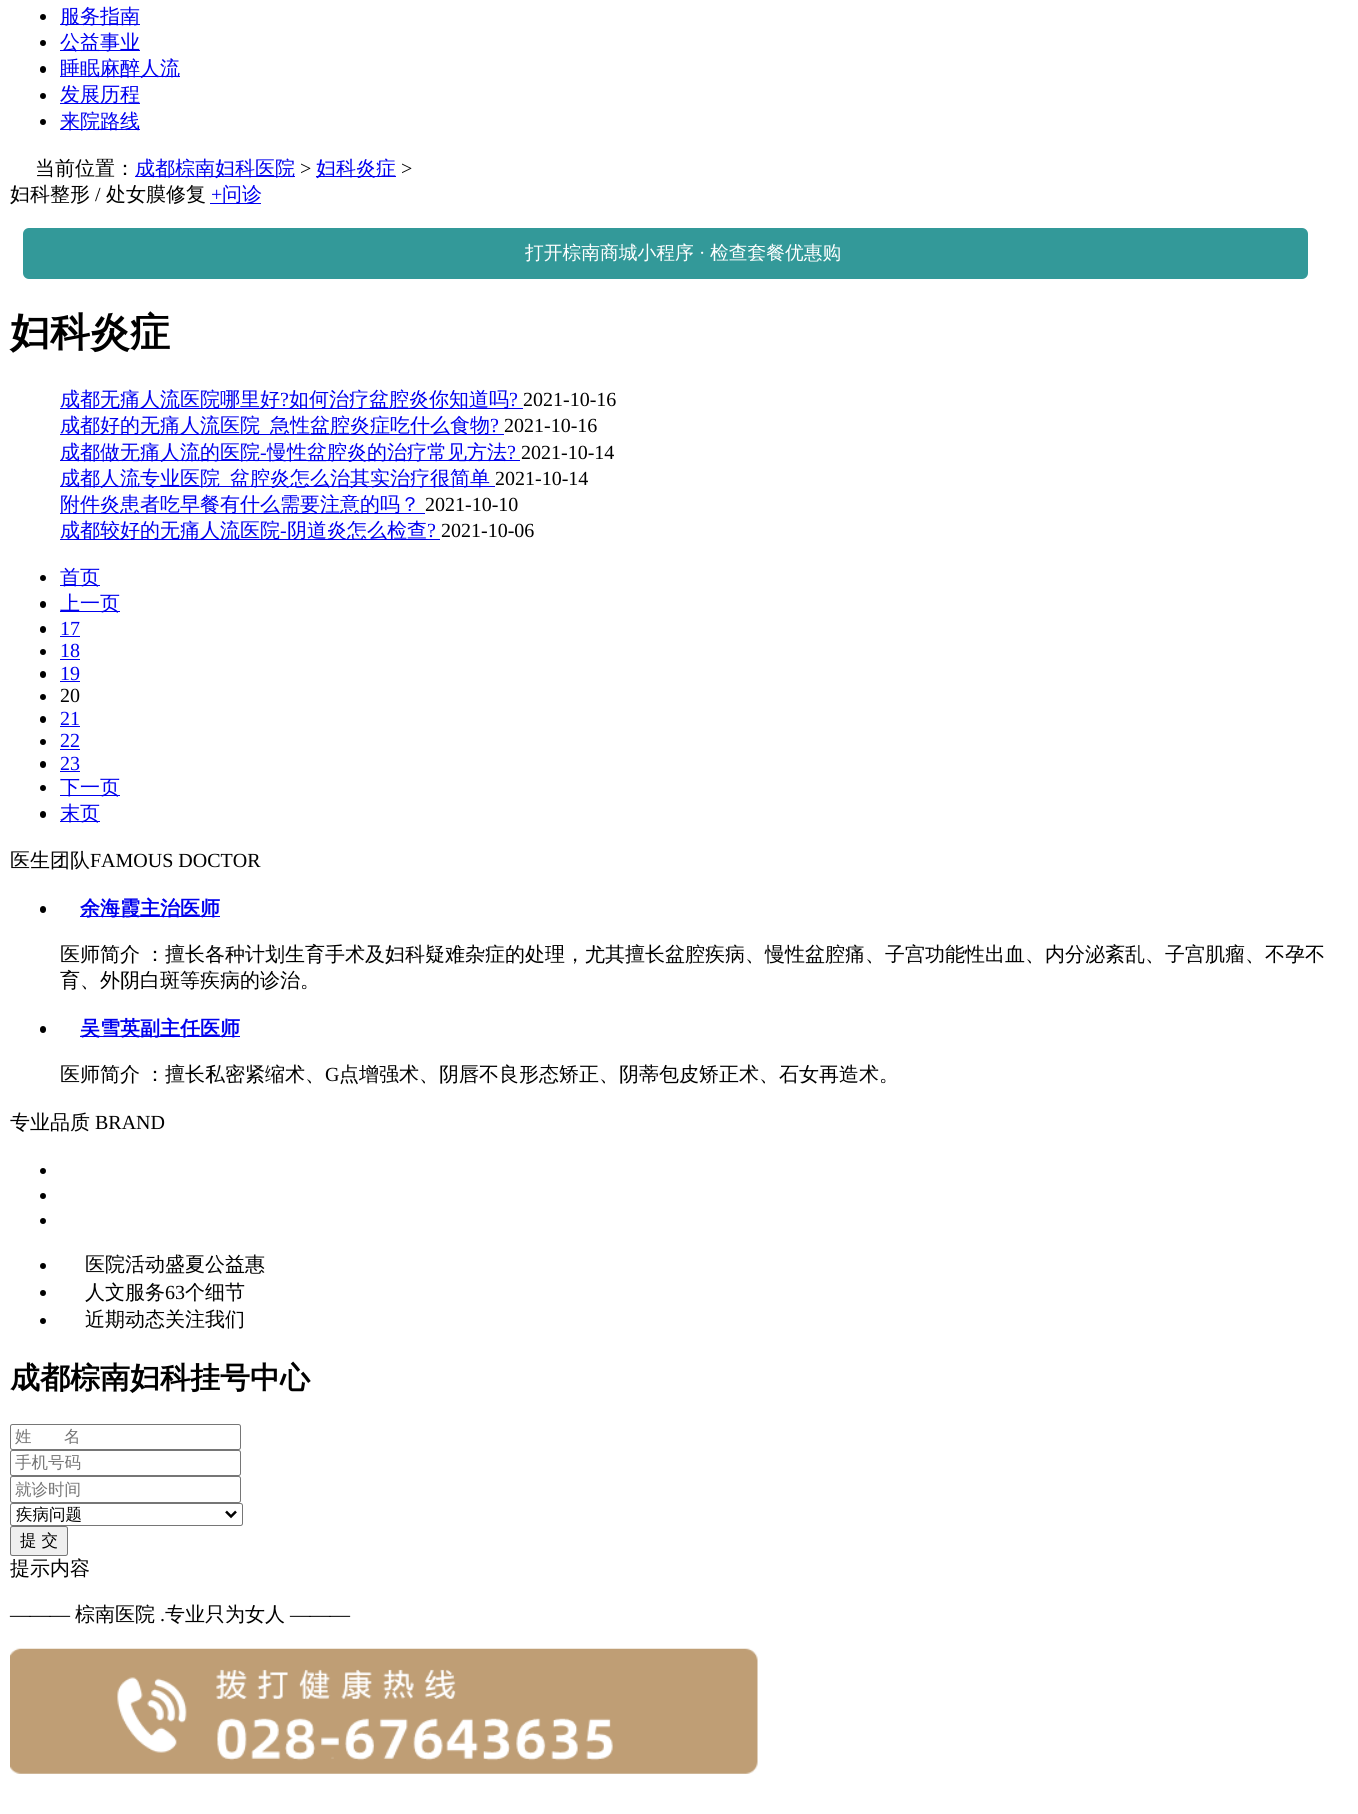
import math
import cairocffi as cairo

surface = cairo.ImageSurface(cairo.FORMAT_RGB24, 1358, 1814)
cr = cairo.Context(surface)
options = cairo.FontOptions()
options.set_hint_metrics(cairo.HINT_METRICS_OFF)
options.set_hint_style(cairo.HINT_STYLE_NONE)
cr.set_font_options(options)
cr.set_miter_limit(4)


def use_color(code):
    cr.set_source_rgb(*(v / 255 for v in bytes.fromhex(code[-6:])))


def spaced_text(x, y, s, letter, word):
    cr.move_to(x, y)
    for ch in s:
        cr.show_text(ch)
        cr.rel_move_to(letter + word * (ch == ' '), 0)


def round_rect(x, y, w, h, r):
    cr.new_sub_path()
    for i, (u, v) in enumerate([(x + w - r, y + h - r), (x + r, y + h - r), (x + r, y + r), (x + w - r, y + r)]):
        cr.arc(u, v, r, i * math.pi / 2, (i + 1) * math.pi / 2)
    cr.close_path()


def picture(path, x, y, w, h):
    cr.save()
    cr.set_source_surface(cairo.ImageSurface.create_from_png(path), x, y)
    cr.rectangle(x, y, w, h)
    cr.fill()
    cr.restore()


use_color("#ffffff")
cr.paint()
use_color("#000000")
cr.arc(43, 17, 3, 0, 2 * math.pi)
cr.fill()
use_color("#0000ee")
cr.rectangle(60, 24, 80, 1)
cr.fill()
cr.select_font_face("WenQuanYi Zen Hei Medium")
cr.set_font_size(20)
cr.move_to(60, 23)
cr.show_text("服务指南")
use_color("#000000")
cr.new_path()
cr.arc(43, 43, 3, 0, 2 * math.pi)
cr.fill()
use_color("#0000ee")
cr.rectangle(60, 50, 80, 1)
cr.fill()
cr.move_to(60, 49)
cr.show_text("公益事业")
use_color("#000000")
round_rect(40, 66, 6, 7, 3)
cr.fill()
use_color("#0000ee")
cr.rectangle(60, 76, 120, 1)
cr.fill()
cr.move_to(60, 75)
cr.show_text("睡眠麻醉人流")
use_color("#000000")
cr.new_path()
cr.arc(43, 96, 3, 0, 2 * math.pi)
cr.fill()
use_color("#0000ee")
cr.rectangle(60, 103, 80, 1)
cr.fill()
cr.move_to(60, 101)
cr.show_text("发展历程")
use_color("#000000")
cr.new_path()
cr.arc(43, 122, 3, 0, 2 * math.pi)
cr.fill()
use_color("#0000ee")
cr.rectangle(60, 129, 80, 1)
cr.fill()
cr.move_to(60, 128)
cr.show_text("来院路线")
use_color("#000000")
cr.move_to(35, 175)
cr.show_text("当前位置：")
use_color("#0000ee")
cr.rectangle(135, 176, 160, 1)
cr.fill()
cr.move_to(135, 175)
cr.show_text("成都棕南妇科医院")
cr.select_font_face("Liberation Serif")
use_color("#000000")
cr.move_to(300, 175)
cr.show_text(">")
use_color("#0000ee")
cr.rectangle(316, 176, 80, 1)
cr.fill()
cr.select_font_face("WenQuanYi Zen Hei Medium")
cr.move_to(316, 175)
cr.show_text("妇科炎症")
cr.select_font_face("Liberation Serif")
use_color("#000000")
cr.move_to(401, 175)
cr.show_text(">")
cr.select_font_face("WenQuanYi Zen Hei Medium")
cr.move_to(10, 201)
cr.show_text("妇科整形")
cr.select_font_face("Liberation Serif")
cr.move_to(95, 201)
cr.show_text("/")
cr.select_font_face("WenQuanYi Zen Hei Medium")
cr.move_to(106, 201)
cr.show_text("处女膜修复")
cr.select_font_face("Liberation Serif")
use_color("#0000ee")
cr.move_to(211, 201)
cr.show_text("+")
cr.rectangle(210, 203, 51, 1)
cr.fill()
cr.select_font_face("WenQuanYi Zen Hei Medium")
cr.move_to(222, 201)
cr.show_text("问诊")
use_color("#339999")
round_rect(23, 228, 1285, 51, 6)
cr.fill()
cr.set_font_size(18.75)
use_color("#ffffff")
cr.move_to(525, 259)
cr.show_text("打开棕南商城小程序")
cr.select_font_face("Liberation Serif")
cr.move_to(699, 259)
cr.show_text("·")
cr.select_font_face("WenQuanYi Zen Hei Medium")
cr.move_to(710, 259)
cr.show_text("检查套餐优惠购")
cr.select_font_face("WenQuanYi Zen Hei", cairo.FONT_SLANT_NORMAL, cairo.FONT_WEIGHT_BOLD)
cr.set_font_size(40)
use_color("#000000")
cr.move_to(10, 346)
cr.show_text("妇科炎症")
use_color("#0000ee")
cr.rectangle(60, 408, 463, 1)
cr.fill()
cr.select_font_face("WenQuanYi Zen Hei Medium")
cr.set_font_size(20)
cr.move_to(60, 406)
cr.show_text("成都无痛人流医院哪里好")
cr.select_font_face("Liberation Serif")
cr.move_to(280, 406)
cr.show_text("?")
cr.select_font_face("WenQuanYi Zen Hei Medium")
cr.move_to(289, 406)
cr.show_text("如何治疗盆腔炎你知道吗")
cr.select_font_face("Liberation Serif")
cr.move_to(509, 406)
cr.show_text("?")
use_color("#000000")
cr.move_to(523, 406)
cr.show_text("2021-10-16")
use_color("#0000ee")
cr.rectangle(60, 434, 444, 1)
cr.fill()
cr.select_font_face("WenQuanYi Zen Hei Medium")
cr.move_to(60, 432)
cr.show_text("成都好的无痛人流医院")
cr.move_to(270, 432)
cr.show_text("急性盆腔炎症吃什么食物")
cr.select_font_face("Liberation Serif")
cr.move_to(490, 432)
cr.show_text("?")
use_color("#000000")
cr.move_to(504, 432)
cr.show_text("2021-10-16")
use_color("#0000ee")
cr.rectangle(60, 460, 460, 1)
cr.fill()
cr.select_font_face("WenQuanYi Zen Hei Medium")
cr.move_to(60, 459)
cr.show_text("成都做无痛人流的医院")
cr.select_font_face("Liberation Serif")
cr.move_to(260, 459)
cr.show_text("-")
cr.select_font_face("WenQuanYi Zen Hei Medium")
cr.move_to(267, 459)
cr.show_text("慢性盆腔炎的治疗常见方法")
cr.select_font_face("Liberation Serif")
cr.move_to(507, 459)
cr.show_text("?")
use_color("#000000")
cr.move_to(521, 459)
cr.show_text("2021-10-14")
use_color("#0000ee")
cr.rectangle(60, 486, 435, 1)
cr.fill()
cr.select_font_face("WenQuanYi Zen Hei Medium")
cr.move_to(60, 485)
cr.show_text("成都人流专业医院")
cr.move_to(230, 485)
cr.show_text("盆腔炎怎么治其实治疗很简单")
cr.select_font_face("Liberation Serif")
use_color("#000000")
cr.move_to(495, 485)
cr.show_text("2021-10-14")
use_color("#0000ee")
cr.rectangle(60, 513, 365, 1)
cr.fill()
cr.select_font_face("WenQuanYi Zen Hei Medium")
cr.move_to(60, 511)
cr.show_text("附件炎患者吃早餐有什么需要注意的吗？")
cr.select_font_face("Liberation Serif")
use_color("#000000")
cr.move_to(425, 511)
cr.show_text("2021-10-10")
use_color("#0000ee")
cr.rectangle(60, 539, 380, 1)
cr.fill()
cr.select_font_face("WenQuanYi Zen Hei Medium")
cr.move_to(60, 537)
cr.show_text("成都较好的无痛人流医院")
cr.select_font_face("Liberation Serif")
cr.move_to(280, 537)
cr.show_text("-")
cr.select_font_face("WenQuanYi Zen Hei Medium")
cr.move_to(287, 537)
cr.show_text("阴道炎怎么检查")
cr.select_font_face("Liberation Serif")
cr.move_to(427, 537)
cr.show_text("?")
use_color("#000000")
cr.move_to(441, 537)
cr.show_text("2021-10-06")
cr.new_path()
cr.arc(43, 578, 3, 0, 2 * math.pi)
cr.fill()
use_color("#0000ee")
cr.rectangle(60, 585, 40, 1)
cr.fill()
cr.select_font_face("WenQuanYi Zen Hei Medium")
cr.move_to(60, 584)
cr.show_text("首页")
use_color("#000000")
round_rect(40, 601, 6, 7, 3)
cr.fill()
use_color("#0000ee")
cr.rectangle(60, 611, 60, 1)
cr.fill()
cr.move_to(60, 610)
cr.show_text("上一页")
use_color("#000000")
round_rect(40, 626, 6, 7, 3)
cr.fill()
cr.select_font_face("Liberation Serif")
use_color("#0000ee")
cr.move_to(60, 635)
cr.show_text("17")
cr.rectangle(60, 636, 20, 1)
cr.fill()
use_color("#000000")
cr.arc(43, 652, 3, 0, 2 * math.pi)
cr.fill()
use_color("#0000ee")
cr.move_to(60, 657)
cr.show_text("18")
cr.rectangle(60, 659, 20, 1)
cr.fill()
use_color("#000000")
round_rect(40, 671, 6, 7, 3)
cr.fill()
use_color("#0000ee")
cr.move_to(60, 680)
cr.show_text("19")
cr.rectangle(60, 681, 20, 1)
cr.fill()
use_color("#000000")
cr.arc(43, 697, 3, 0, 2 * math.pi)
cr.fill()
cr.move_to(60, 702)
cr.show_text("20")
round_rect(40, 716, 6, 7, 3)
cr.fill()
use_color("#0000ee")
cr.move_to(60, 725)
cr.show_text("21")
cr.rectangle(60, 726, 20, 1)
cr.fill()
use_color("#000000")
cr.arc(43, 742, 3, 0, 2 * math.pi)
cr.fill()
use_color("#0000ee")
cr.move_to(60, 747)
cr.show_text("22")
cr.rectangle(60, 749, 20, 1)
cr.fill()
use_color("#000000")
round_rect(40, 761, 6, 7, 3)
cr.fill()
use_color("#0000ee")
cr.move_to(60, 770)
cr.show_text("23")
cr.rectangle(60, 771, 20, 1)
cr.fill()
use_color("#000000")
cr.arc(43, 788, 3, 0, 2 * math.pi)
cr.fill()
use_color("#0000ee")
cr.rectangle(60, 795, 60, 1)
cr.fill()
cr.select_font_face("WenQuanYi Zen Hei Medium")
cr.move_to(60, 794)
cr.show_text("下一页")
use_color("#000000")
round_rect(40, 811, 6, 7, 3)
cr.fill()
use_color("#0000ee")
cr.rectangle(60, 821, 40, 1)
cr.fill()
cr.move_to(60, 820)
cr.show_text("末页")
use_color("#000000")
cr.move_to(10, 867)
cr.show_text("医生团队")
cr.select_font_face("Liberation Serif")
cr.move_to(90, 867)
cr.show_text("FAMOUS DOCTOR")
round_rect(40, 906, 6, 7, 3)
cr.fill()
use_color("#0000ee")
cr.rectangle(80, 916, 140, 1)
cr.fill()
cr.select_font_face("WenQuanYi Zen Hei", cairo.FONT_SLANT_NORMAL, cairo.FONT_WEIGHT_BOLD)
cr.move_to(80, 915)
cr.show_text("余海霞主治医师")
cr.select_font_face("WenQuanYi Zen Hei Medium")
use_color("#000000")
spaced_text(60, 961, "医师简介 ：擅长各种计划生育手术及妇科疑难杂症的处理，尤其擅长盆腔疾病、慢性盆腔痛、子宫功能性出血、内分泌紊乱、子宫肌瘤、不孕不", 0, -1)
cr.move_to(60, 987)
cr.show_text("育、外阴白斑等疾病的诊治。")
round_rect(40, 1026, 6, 7, 3)
cr.fill()
use_color("#0000ee")
cr.rectangle(80, 1036, 160, 1)
cr.fill()
cr.select_font_face("WenQuanYi Zen Hei", cairo.FONT_SLANT_NORMAL, cairo.FONT_WEIGHT_BOLD)
cr.move_to(80, 1035)
cr.show_text("吴雪英副主任医师")
cr.select_font_face("WenQuanYi Zen Hei Medium")
use_color("#000000")
spaced_text(60, 1081, "医师简介 ：擅长私密紧缩术、", 0, -1)
cr.select_font_face("Liberation Serif")
cr.move_to(325, 1081)
cr.show_text("G")
cr.select_font_face("WenQuanYi Zen Hei Medium")
cr.move_to(339, 1081)
cr.show_text("点增强术、阴唇不良形态矫正、阴蒂包皮矫正术、石女再造术。")
cr.move_to(10, 1129)
cr.show_text("专业品质")
cr.select_font_face("Liberation Serif")
cr.move_to(95, 1129)
cr.show_text("BRAND")
cr.new_path()
cr.arc(43, 1171, 3, 0, 2 * math.pi)
cr.fill()
cr.arc(43, 1196, 3, 0, 2 * math.pi)
cr.fill()
cr.arc(43, 1221, 3, 0, 2 * math.pi)
cr.fill()
cr.arc(43, 1266, 3, 0, 2 * math.pi)
cr.fill()
cr.select_font_face("WenQuanYi Zen Hei Medium")
cr.move_to(85, 1271)
cr.show_text("医院活动盛夏公益惠")
cr.new_path()
cr.arc(43, 1293, 3, 0, 2 * math.pi)
cr.fill()
cr.move_to(85, 1299)
cr.show_text("人文服务")
cr.select_font_face("Liberation Serif")
cr.move_to(165, 1299)
cr.show_text("63")
cr.select_font_face("WenQuanYi Zen Hei Medium")
cr.move_to(185, 1299)
cr.show_text("个细节")
cr.new_path()
cr.arc(43, 1321, 3, 0, 2 * math.pi)
cr.fill()
cr.move_to(85, 1326)
cr.show_text("近期动态关注我们")
cr.select_font_face("WenQuanYi Zen Hei", cairo.FONT_SLANT_NORMAL, cairo.FONT_WEIGHT_BOLD)
cr.set_font_size(30)
cr.move_to(10, 1388)
cr.show_text("成都棕南妇科挂号中心")
round_rect(10.5, 1424.5, 230, 25, 2)
use_color("#767676")
cr.set_line_width(1)
cr.stroke()
cr.select_font_face("WenQuanYi Zen Hei Medium")
cr.set_font_size(16.5)
use_color("#757575")
cr.move_to(15, 1442)
cr.show_text("姓")
cr.move_to(64, 1442)
cr.show_text("名")
round_rect(10.5, 1450.5, 230, 25, 2)
use_color("#767676")
cr.stroke()
use_color("#757575")
cr.move_to(15, 1468)
cr.show_text("手机号码")
round_rect(10.5, 1476.5, 230, 26, 2)
use_color("#767676")
cr.stroke()
use_color("#757575")
cr.move_to(15, 1495)
cr.show_text("就诊时间")
round_rect(10.5, 1503.5, 232, 22, 2)
use_color("#767676")
cr.stroke()
cr.new_path()
cr.move_to(226, 1511.5)
cr.line_to(231, 1516.5)
cr.line_to(236, 1511.5)
use_color("#000000")
cr.set_line_width(2.5)
cr.stroke()
cr.move_to(16, 1520)
cr.show_text("疾病问题")
use_color("#efefef")
round_rect(10.5, 1526.5, 57, 29, 2)
cr.fill_preserve()
use_color("#767676")
cr.set_line_width(1)
cr.stroke()
use_color("#000000")
cr.move_to(20, 1546)
cr.show_text("提 交")
cr.set_font_size(20)
cr.move_to(10, 1575)
cr.show_text("提示内容")
cr.select_font_face("Liberation Serif")
cr.move_to(10, 1621)
cr.show_text("———")
cr.select_font_face("WenQuanYi Zen Hei Medium")
cr.move_to(75, 1621)
cr.show_text("棕南医院")
cr.move_to(165, 1621)
cr.show_text("专业只为女人")
cr.select_font_face("Liberation Serif")
cr.move_to(290, 1621)
cr.show_text("———")
cr.move_to(160, 1621)
cr.show_text(".")
picture("img1.png", 10, 1648, 748, 126)
surface.write_to_png("result.png")
